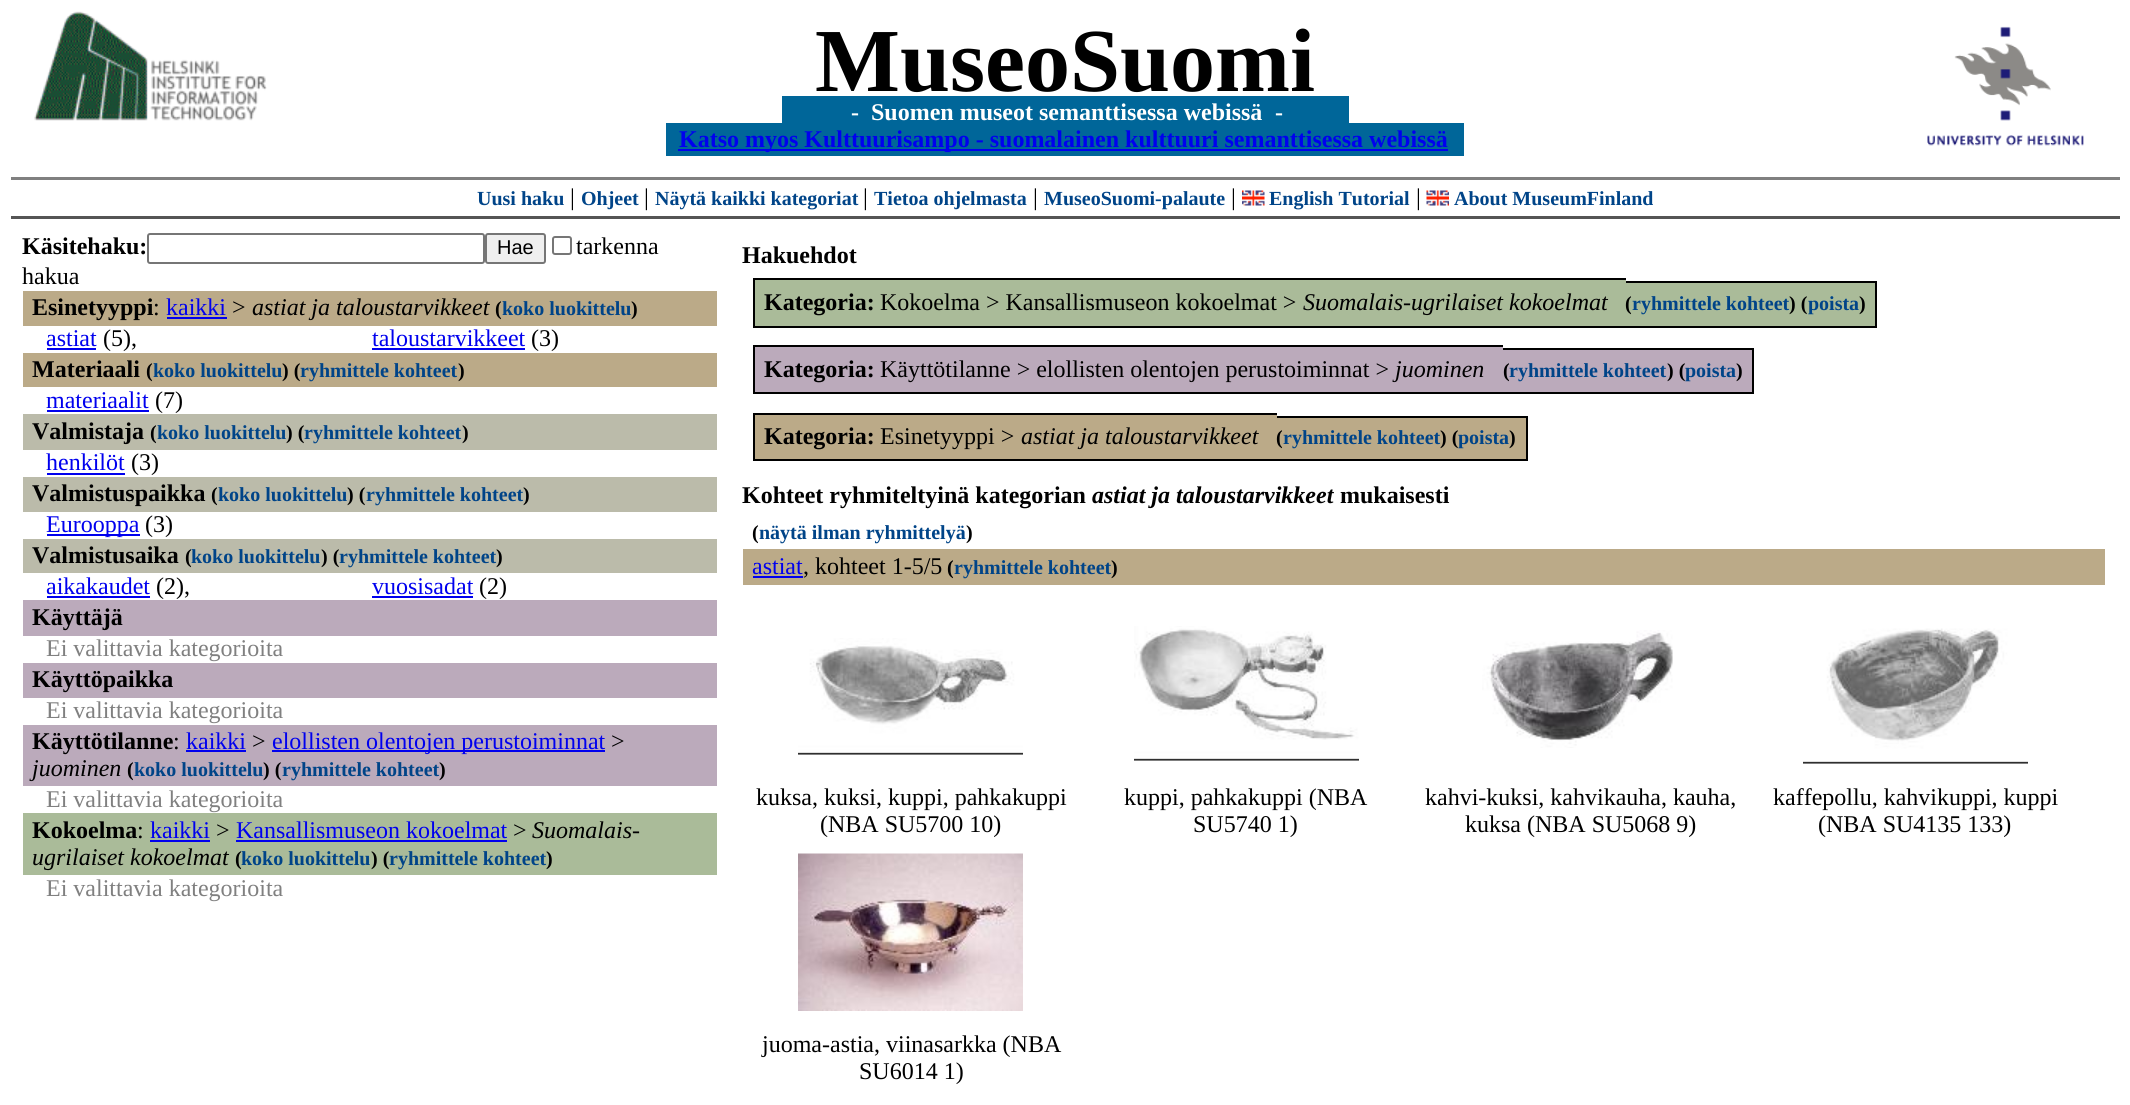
import math
import cairocffi as cairo

surface = cairo.ImageSurface(cairo.FORMAT_RGB24, 2130, 1105)
cr = cairo.Context(surface)
options = cairo.FontOptions()
options.set_hint_metrics(cairo.HINT_METRICS_OFF)
options.set_hint_style(cairo.HINT_STYLE_NONE)
cr.set_font_options(options)
cr.set_miter_limit(4)


def use_color(code):
    cr.set_source_rgb(*(v / 255 for v in bytes.fromhex(code[-6:])))


def round_rect(x, y, w, h, r):
    cr.new_sub_path()
    for i, (u, v) in enumerate([(x + w - r, y + h - r), (x + r, y + h - r), (x + r, y + r), (x + w - r, y + r)]):
        cr.arc(u, v, r, i * math.pi / 2, (i + 1) * math.pi / 2)
    cr.close_path()


def picture(path, x, y, w, h):
    cr.save()
    cr.set_source_surface(cairo.ImageSurface.create_from_png(path), x, y)
    cr.rectangle(x, y, w, h)
    cr.fill()
    cr.restore()


use_color("#ffffff")
cr.paint()
picture("img1.png", 34, 11, 233, 110)
cr.select_font_face("Liberation Serif", cairo.FONT_SLANT_NORMAL, cairo.FONT_WEIGHT_BOLD)
cr.set_font_size(90)
use_color("#000000")
cr.move_to(815, 91)
cr.show_text("MuseoSuomi")
picture("img2.png", 1927, 26, 157, 120)
use_color("#006699")
cr.rectangle(782, 96, 567, 27)
cr.fill()
cr.set_font_size(24)
use_color("#ffffff")
cr.move_to(851, 120)
cr.show_text("-")
cr.move_to(871, 120)
cr.show_text("Suomen museot semanttisessa webissä")
cr.move_to(1275, 120)
cr.show_text("-")
use_color("#006699")
cr.rectangle(666, 123, 798, 33)
cr.fill()
use_color("#0000ee")
cr.rectangle(678, 149, 770, 2)
cr.fill()
cr.move_to(679, 147)
cr.show_text("Katso myos Kulttuurisampo - suomalainen kulttuuri semanttisessa webissä")
use_color("#808080")
cr.rectangle(11, 177, 2109, 3)
cr.fill()
use_color("#555555")
cr.rectangle(11, 216, 2109, 3)
cr.fill()
cr.set_font_size(20)
use_color("#004488")
cr.move_to(477, 205)
cr.show_text("Uusi haku")
cr.select_font_face("Liberation Serif")
cr.set_font_size(24)
use_color("#000000")
cr.move_to(570, 205)
cr.show_text("|")
cr.select_font_face("Liberation Serif", cairo.FONT_SLANT_NORMAL, cairo.FONT_WEIGHT_BOLD)
cr.set_font_size(20)
use_color("#004488")
cr.move_to(581, 205)
cr.show_text("Ohjeet")
cr.select_font_face("Liberation Serif")
cr.set_font_size(24)
use_color("#000000")
cr.move_to(644, 205)
cr.show_text("|")
cr.select_font_face("Liberation Serif", cairo.FONT_SLANT_NORMAL, cairo.FONT_WEIGHT_BOLD)
cr.set_font_size(20)
use_color("#004488")
cr.move_to(655, 205)
cr.show_text("Näytä kaikki kategoriat")
cr.select_font_face("Liberation Serif")
cr.set_font_size(24)
use_color("#000000")
cr.move_to(863, 205)
cr.show_text("|")
cr.select_font_face("Liberation Serif", cairo.FONT_SLANT_NORMAL, cairo.FONT_WEIGHT_BOLD)
cr.set_font_size(20)
use_color("#004488")
cr.move_to(874, 205)
cr.show_text("Tietoa ohjelmasta")
cr.select_font_face("Liberation Serif")
cr.set_font_size(24)
use_color("#000000")
cr.move_to(1033, 205)
cr.show_text("|")
cr.select_font_face("Liberation Serif", cairo.FONT_SLANT_NORMAL, cairo.FONT_WEIGHT_BOLD)
cr.set_font_size(20)
use_color("#004488")
cr.move_to(1044, 205)
cr.show_text("MuseoSuomi-palaute")
cr.select_font_face("Liberation Serif")
cr.set_font_size(24)
use_color("#000000")
cr.move_to(1231, 205)
cr.show_text("|")
picture("img3.png", 1242, 190, 23, 16)
cr.select_font_face("Liberation Serif", cairo.FONT_SLANT_NORMAL, cairo.FONT_WEIGHT_BOLD)
cr.set_font_size(20)
use_color("#004488")
cr.move_to(1269, 205)
cr.show_text("English Tutorial")
cr.select_font_face("Liberation Serif")
cr.set_font_size(24)
use_color("#000000")
cr.move_to(1416, 205)
cr.show_text("|")
picture("img4.png", 1426, 190, 23, 16)
cr.select_font_face("Liberation Serif", cairo.FONT_SLANT_NORMAL, cairo.FONT_WEIGHT_BOLD)
cr.set_font_size(20)
use_color("#004488")
cr.move_to(1454, 205)
cr.show_text("About MuseumFinland")
cr.set_font_size(24)
use_color("#000000")
cr.move_to(22, 254)
cr.show_text("Käsitehaku:")
round_rect(148, 234, 336, 29, 2)
use_color("#767676")
cr.stroke()
use_color("#efefef")
round_rect(486, 234, 59, 29, 2)
cr.fill_preserve()
use_color("#767676")
cr.stroke()
cr.select_font_face("Liberation Sans")
cr.set_font_size(20)
use_color("#000000")
cr.move_to(497, 254)
cr.show_text("Hae")
round_rect(553, 237, 18, 17, 2)
use_color("#767676")
cr.stroke()
cr.select_font_face("Liberation Serif")
cr.set_font_size(24)
use_color("#000000")
cr.move_to(576, 254)
cr.show_text("tarkenna")
cr.move_to(22, 284)
cr.show_text("hakua")
use_color("#bbaa88")
cr.rectangle(23, 291, 694, 35)
cr.fill()
cr.select_font_face("Liberation Serif", cairo.FONT_SLANT_NORMAL, cairo.FONT_WEIGHT_BOLD)
use_color("#000000")
cr.move_to(32, 315)
cr.show_text("Esinetyyppi")
cr.select_font_face("Liberation Serif")
cr.move_to(153, 315)
cr.show_text(":")
use_color("#0000ee")
cr.move_to(166, 315)
cr.show_text("kaikki")
cr.rectangle(167, 317, 60, 2)
cr.fill()
use_color("#000000")
cr.move_to(232, 315)
cr.show_text(">")
cr.select_font_face("Liberation Serif", cairo.FONT_SLANT_ITALIC)
cr.move_to(252, 315)
cr.show_text("astiat ja taloustarvikkeet")
cr.select_font_face("Liberation Serif", cairo.FONT_SLANT_NORMAL, cairo.FONT_WEIGHT_BOLD)
cr.set_font_size(20)
cr.move_to(495, 315)
cr.show_text("(")
use_color("#004488")
cr.move_to(502, 315)
cr.show_text("koko luokittelu")
use_color("#000000")
cr.move_to(631, 315)
cr.show_text(")")
cr.select_font_face("Liberation Serif")
cr.set_font_size(24)
use_color("#0000ee")
cr.move_to(46, 346)
cr.show_text("astiat")
cr.rectangle(47, 348, 49, 2)
cr.fill()
use_color("#000000")
cr.move_to(103, 346)
cr.show_text("(5),")
use_color("#0000ee")
cr.move_to(372, 346)
cr.show_text("taloustarvikkeet")
cr.rectangle(372, 348, 153, 2)
cr.fill()
use_color("#000000")
cr.move_to(531, 346)
cr.show_text("(3)")
use_color("#bbaa88")
cr.rectangle(23, 353, 694, 34)
cr.fill()
cr.select_font_face("Liberation Serif", cairo.FONT_SLANT_NORMAL, cairo.FONT_WEIGHT_BOLD)
use_color("#000000")
cr.move_to(32, 377)
cr.show_text("Materiaali")
cr.set_font_size(20)
cr.move_to(146, 377)
cr.show_text("(")
use_color("#004488")
cr.move_to(153, 377)
cr.show_text("koko luokittelu")
use_color("#000000")
cr.move_to(282, 377)
cr.show_text(") (")
use_color("#004488")
cr.move_to(300, 377)
cr.show_text("ryhmittele kohteet")
use_color("#000000")
cr.move_to(458, 377)
cr.show_text(")")
cr.select_font_face("Liberation Serif")
cr.set_font_size(24)
use_color("#0000ee")
cr.move_to(46, 408)
cr.show_text("materiaalit")
cr.rectangle(47, 410, 102, 2)
cr.fill()
use_color("#000000")
cr.move_to(155, 408)
cr.show_text("(7)")
use_color("#bbbbaa")
cr.rectangle(23, 414, 694, 36)
cr.fill()
cr.select_font_face("Liberation Serif", cairo.FONT_SLANT_NORMAL, cairo.FONT_WEIGHT_BOLD)
use_color("#000000")
cr.move_to(32, 439)
cr.show_text("Valmistaja")
cr.set_font_size(20)
cr.move_to(150, 439)
cr.show_text("(")
use_color("#004488")
cr.move_to(157, 439)
cr.show_text("koko luokittelu")
use_color("#000000")
cr.move_to(286, 439)
cr.show_text(") (")
use_color("#004488")
cr.move_to(304, 439)
cr.show_text("ryhmittele kohteet")
use_color("#000000")
cr.move_to(462, 439)
cr.show_text(")")
cr.select_font_face("Liberation Serif")
cr.set_font_size(24)
use_color("#0000ee")
cr.move_to(46, 470)
cr.show_text("henkilöt")
cr.rectangle(47, 473, 78, 2)
cr.fill()
use_color("#000000")
cr.move_to(131, 470)
cr.show_text("(3)")
use_color("#bbbbaa")
cr.rectangle(23, 477, 694, 35)
cr.fill()
cr.select_font_face("Liberation Serif", cairo.FONT_SLANT_NORMAL, cairo.FONT_WEIGHT_BOLD)
use_color("#000000")
cr.move_to(32, 501)
cr.show_text("Valmistuspaikka")
cr.set_font_size(20)
cr.move_to(211, 501)
cr.show_text("(")
use_color("#004488")
cr.move_to(218, 501)
cr.show_text("koko luokittelu")
use_color("#000000")
cr.move_to(347, 501)
cr.show_text(") (")
use_color("#004488")
cr.move_to(366, 501)
cr.show_text("ryhmittele kohteet")
use_color("#000000")
cr.move_to(523, 501)
cr.show_text(")")
use_color("#0000ee")
cr.rectangle(47, 534, 93, 2)
cr.fill()
cr.select_font_face("Liberation Serif")
cr.set_font_size(24)
cr.move_to(46, 532)
cr.show_text("Eurooppa")
use_color("#000000")
cr.move_to(145, 532)
cr.show_text("(3)")
use_color("#bbbbaa")
cr.rectangle(23, 539, 694, 34)
cr.fill()
cr.select_font_face("Liberation Serif", cairo.FONT_SLANT_NORMAL, cairo.FONT_WEIGHT_BOLD)
use_color("#000000")
cr.move_to(32, 563)
cr.show_text("Valmistusaika")
cr.set_font_size(20)
cr.move_to(185, 563)
cr.show_text("(")
use_color("#004488")
cr.move_to(191, 563)
cr.show_text("koko luokittelu")
use_color("#000000")
cr.move_to(321, 563)
cr.show_text(") (")
use_color("#004488")
cr.move_to(339, 563)
cr.show_text("ryhmittele kohteet")
use_color("#000000")
cr.move_to(496, 563)
cr.show_text(")")
cr.select_font_face("Liberation Serif")
cr.set_font_size(24)
use_color("#0000ee")
cr.move_to(46, 594)
cr.show_text("aikakaudet")
cr.rectangle(47, 596, 103, 2)
cr.fill()
use_color("#000000")
cr.move_to(156, 594)
cr.show_text("(2),")
use_color("#0000ee")
cr.move_to(372, 594)
cr.show_text("vuosisadat")
cr.rectangle(372, 596, 101, 2)
cr.fill()
use_color("#000000")
cr.move_to(479, 594)
cr.show_text("(2)")
use_color("#bbaabb")
cr.rectangle(23, 600, 694, 36)
cr.fill()
cr.select_font_face("Liberation Serif", cairo.FONT_SLANT_NORMAL, cairo.FONT_WEIGHT_BOLD)
use_color("#000000")
cr.move_to(32, 625)
cr.show_text("Käyttäjä")
cr.select_font_face("Liberation Serif")
use_color("#808080")
cr.move_to(46, 656)
cr.show_text("Ei valittavia kategorioita")
use_color("#bbaabb")
cr.rectangle(23, 663, 694, 35)
cr.fill()
cr.select_font_face("Liberation Serif", cairo.FONT_SLANT_NORMAL, cairo.FONT_WEIGHT_BOLD)
use_color("#000000")
cr.move_to(32, 687)
cr.show_text("Käyttöpaikka")
cr.select_font_face("Liberation Serif")
use_color("#808080")
cr.move_to(46, 718)
cr.show_text("Ei valittavia kategorioita")
use_color("#bbaabb")
cr.rectangle(23, 725, 694, 61)
cr.fill()
cr.select_font_face("Liberation Serif", cairo.FONT_SLANT_NORMAL, cairo.FONT_WEIGHT_BOLD)
use_color("#000000")
cr.move_to(32, 749)
cr.show_text("Käyttötilanne")
cr.select_font_face("Liberation Serif")
cr.move_to(173, 749)
cr.show_text(":")
use_color("#0000ee")
cr.move_to(186, 749)
cr.show_text("kaikki")
cr.rectangle(186, 750, 60, 2)
cr.fill()
use_color("#000000")
cr.move_to(252, 749)
cr.show_text(">")
use_color("#0000ee")
cr.rectangle(272, 750, 333, 2)
cr.fill()
cr.move_to(272, 749)
cr.show_text("elollisten olentojen perustoiminnat")
use_color("#000000")
cr.move_to(611, 749)
cr.show_text(">")
cr.select_font_face("Liberation Serif", cairo.FONT_SLANT_ITALIC)
cr.move_to(32, 776)
cr.show_text("juominen")
cr.select_font_face("Liberation Serif", cairo.FONT_SLANT_NORMAL, cairo.FONT_WEIGHT_BOLD)
cr.set_font_size(20)
cr.move_to(127, 776)
cr.show_text("(")
use_color("#004488")
cr.move_to(134, 776)
cr.show_text("koko luokittelu")
use_color("#000000")
cr.move_to(263, 776)
cr.show_text(") (")
use_color("#004488")
cr.move_to(282, 776)
cr.show_text("ryhmittele kohteet")
use_color("#000000")
cr.move_to(439, 776)
cr.show_text(")")
cr.select_font_face("Liberation Serif")
cr.set_font_size(24)
use_color("#808080")
cr.move_to(46, 807)
cr.show_text("Ei valittavia kategorioita")
use_color("#aabb99")
cr.rectangle(23, 813, 694, 62)
cr.fill()
cr.select_font_face("Liberation Serif", cairo.FONT_SLANT_NORMAL, cairo.FONT_WEIGHT_BOLD)
use_color("#000000")
cr.move_to(32, 838)
cr.show_text("Kokoelma")
cr.select_font_face("Liberation Serif")
cr.move_to(137, 838)
cr.show_text(":")
use_color("#0000ee")
cr.move_to(150, 838)
cr.show_text("kaikki")
cr.rectangle(150, 840, 60, 2)
cr.fill()
use_color("#000000")
cr.move_to(216, 838)
cr.show_text(">")
use_color("#0000ee")
cr.move_to(236, 838)
cr.show_text("Kansallismuseon kokoelmat")
cr.rectangle(236, 840, 271, 2)
cr.fill()
use_color("#000000")
cr.move_to(513, 838)
cr.show_text(">")
cr.select_font_face("Liberation Serif", cairo.FONT_SLANT_ITALIC)
cr.move_to(532, 838)
cr.show_text("Suomalais-")
cr.move_to(32, 865)
cr.show_text("ugrilaiset kokoelmat")
cr.select_font_face("Liberation Serif", cairo.FONT_SLANT_NORMAL, cairo.FONT_WEIGHT_BOLD)
cr.set_font_size(20)
cr.move_to(235, 865)
cr.show_text("(")
use_color("#004488")
cr.move_to(241, 865)
cr.show_text("koko luokittelu")
use_color("#000000")
cr.move_to(371, 865)
cr.show_text(") (")
use_color("#004488")
cr.move_to(389, 865)
cr.show_text("ryhmittele kohteet")
use_color("#000000")
cr.move_to(546, 865)
cr.show_text(")")
cr.select_font_face("Liberation Serif")
cr.set_font_size(24)
use_color("#808080")
cr.move_to(46, 896)
cr.show_text("Ei valittavia kategorioita")
cr.select_font_face("Liberation Serif", cairo.FONT_SLANT_NORMAL, cairo.FONT_WEIGHT_BOLD)
use_color("#000000")
cr.move_to(742, 263)
cr.show_text("Hakuehdot")
use_color("#aabb99")
cr.rectangle(755, 280, 871, 46)
cr.fill()
use_color("#000000")
cr.move_to(764, 310)
cr.show_text("Kategoria:")
cr.rectangle(753, 278, 873, 2)
cr.fill()
cr.rectangle(753, 326, 873, 2)
cr.fill()
cr.rectangle(753, 278, 2, 49)
cr.fill()
cr.select_font_face("Liberation Serif")
cr.move_to(880, 310)
cr.show_text("Kokoelma > Kansallismuseon kokoelmat >")
cr.select_font_face("Liberation Serif", cairo.FONT_SLANT_ITALIC)
cr.move_to(1303, 310)
cr.show_text("Suomalais-ugrilaiset kokoelmat")
use_color("#aabb99")
cr.rectangle(1626, 281, 6, 46)
cr.fill()
cr.select_font_face("Liberation Serif", cairo.FONT_SLANT_NORMAL, cairo.FONT_WEIGHT_BOLD)
cr.set_font_size(20)
use_color("#000000")
cr.move_to(1625, 310)
cr.show_text("(")
cr.rectangle(1626, 281, 176, 2)
cr.fill()
cr.rectangle(1626, 326, 176, 2)
cr.fill()
use_color("#aabb99")
cr.rectangle(1632, 283, 170, 43)
cr.fill()
use_color("#004488")
cr.move_to(1632, 310)
cr.show_text("ryhmittele kohteet")
use_color("#aabb99")
cr.rectangle(1802, 281, 6, 46)
cr.fill()
use_color("#000000")
cr.move_to(1789, 310)
cr.show_text(") (")
cr.rectangle(1802, 281, 75, 2)
cr.fill()
cr.rectangle(1802, 326, 57, 2)
cr.fill()
use_color("#aabb99")
cr.rectangle(1808, 283, 67, 43)
cr.fill()
use_color("#004488")
cr.move_to(1808, 310)
cr.show_text("poista")
use_color("#000000")
cr.rectangle(1875, 281, 2, 46)
cr.fill()
cr.rectangle(1859, 326, 18, 2)
cr.fill()
cr.move_to(1859, 310)
cr.show_text(")")
use_color("#bbaabb")
cr.rectangle(755, 347, 748, 45)
cr.fill()
cr.set_font_size(24)
use_color("#000000")
cr.move_to(764, 377)
cr.show_text("Kategoria:")
cr.rectangle(753, 345, 750, 2)
cr.fill()
cr.rectangle(753, 392, 750, 2)
cr.fill()
cr.rectangle(753, 345, 2, 48)
cr.fill()
cr.select_font_face("Liberation Serif")
cr.move_to(880, 377)
cr.show_text("Käyttötilanne > elollisten olentojen perustoiminnat >")
cr.select_font_face("Liberation Serif", cairo.FONT_SLANT_ITALIC)
cr.move_to(1395, 377)
cr.show_text("juominen")
use_color("#bbaabb")
cr.rectangle(1503, 348, 6, 45)
cr.fill()
cr.select_font_face("Liberation Serif", cairo.FONT_SLANT_NORMAL, cairo.FONT_WEIGHT_BOLD)
cr.set_font_size(20)
use_color("#000000")
cr.move_to(1503, 377)
cr.show_text("(")
cr.rectangle(1503, 348, 176, 2)
cr.fill()
cr.rectangle(1503, 392, 176, 2)
cr.fill()
use_color("#bbaabb")
cr.rectangle(1509, 350, 170, 42)
cr.fill()
use_color("#004488")
cr.move_to(1509, 377)
cr.show_text("ryhmittele kohteet")
use_color("#bbaabb")
cr.rectangle(1679, 348, 6, 45)
cr.fill()
use_color("#000000")
cr.move_to(1667, 377)
cr.show_text(") (")
cr.rectangle(1679, 348, 75, 2)
cr.fill()
cr.rectangle(1679, 392, 57, 2)
cr.fill()
use_color("#bbaabb")
cr.rectangle(1685, 350, 67, 42)
cr.fill()
use_color("#004488")
cr.move_to(1685, 377)
cr.show_text("poista")
use_color("#000000")
cr.rectangle(1752, 348, 2, 45)
cr.fill()
cr.rectangle(1736, 392, 18, 2)
cr.fill()
cr.move_to(1736, 377)
cr.show_text(")")
use_color("#bbaa88")
cr.rectangle(755, 415, 522, 44)
cr.fill()
cr.set_font_size(24)
use_color("#000000")
cr.move_to(764, 444)
cr.show_text("Kategoria:")
cr.rectangle(753, 413, 524, 2)
cr.fill()
cr.rectangle(753, 459, 524, 2)
cr.fill()
cr.rectangle(753, 413, 2, 48)
cr.fill()
cr.select_font_face("Liberation Serif")
cr.move_to(880, 444)
cr.show_text("Esinetyyppi >")
cr.select_font_face("Liberation Serif", cairo.FONT_SLANT_ITALIC)
cr.move_to(1021, 444)
cr.show_text("astiat ja taloustarvikkeet")
use_color("#bbaa88")
cr.rectangle(1277, 416, 6, 45)
cr.fill()
cr.select_font_face("Liberation Serif", cairo.FONT_SLANT_NORMAL, cairo.FONT_WEIGHT_BOLD)
cr.set_font_size(20)
use_color("#000000")
cr.move_to(1276, 444)
cr.show_text("(")
cr.rectangle(1277, 416, 175, 2)
cr.fill()
cr.rectangle(1277, 459, 175, 2)
cr.fill()
use_color("#bbaa88")
cr.rectangle(1283, 418, 169, 41)
cr.fill()
use_color("#004488")
cr.move_to(1283, 444)
cr.show_text("ryhmittele kohteet")
use_color("#bbaa88")
cr.rectangle(1452, 416, 6, 45)
cr.fill()
use_color("#000000")
cr.move_to(1440, 444)
cr.show_text(") (")
cr.rectangle(1452, 416, 75, 2)
cr.fill()
cr.rectangle(1452, 459, 57, 2)
cr.fill()
use_color("#bbaa88")
cr.rectangle(1458, 418, 68, 41)
cr.fill()
use_color("#004488")
cr.move_to(1458, 444)
cr.show_text("poista")
use_color("#000000")
cr.rectangle(1526, 416, 2, 45)
cr.fill()
cr.rectangle(1509, 459, 18, 2)
cr.fill()
cr.move_to(1509, 444)
cr.show_text(")")
cr.set_font_size(24)
cr.move_to(742, 503)
cr.show_text("Kohteet ryhmiteltyinä kategorian")
cr.select_font_face("Liberation Serif", cairo.FONT_SLANT_ITALIC, cairo.FONT_WEIGHT_BOLD)
cr.move_to(1092, 503)
cr.show_text("astiat ja taloustarvikkeet")
cr.select_font_face("Liberation Serif", cairo.FONT_SLANT_NORMAL, cairo.FONT_WEIGHT_BOLD)
cr.move_to(1340, 503)
cr.show_text("mukaisesti")
cr.set_font_size(20)
cr.move_to(752, 539)
cr.show_text("(")
use_color("#004488")
cr.move_to(759, 539)
cr.show_text("näytä ilman ryhmittelyä")
use_color("#000000")
cr.move_to(966, 539)
cr.show_text(")")
use_color("#bbaa88")
cr.rectangle(743, 549, 1362, 36)
cr.fill()
cr.select_font_face("Liberation Serif")
cr.set_font_size(24)
use_color("#0000ee")
cr.move_to(752, 574)
cr.show_text("astiat")
cr.rectangle(753, 576, 50, 2)
cr.fill()
use_color("#000000")
cr.move_to(803, 574)
cr.show_text(", kohteet 1-5/5")
cr.select_font_face("Liberation Serif", cairo.FONT_SLANT_NORMAL, cairo.FONT_WEIGHT_BOLD)
cr.set_font_size(20)
cr.move_to(947, 574)
cr.show_text("(")
use_color("#004488")
cr.move_to(954, 574)
cr.show_text("ryhmittele kohteet")
use_color("#000000")
cr.move_to(1111, 574)
cr.show_text(")")
picture("img5.png", 798, 638, 225, 117)
picture("img6.png", 1134, 626, 225, 135)
picture("img7.png", 1482, 630, 191, 118)
picture("img8.png", 1803, 628, 225, 136)
cr.select_font_face("Liberation Serif")
cr.set_font_size(24)
cr.move_to(756, 805)
cr.show_text("kuksa, kuksi, kuppi, pahkakuppi")
cr.move_to(820, 832)
cr.show_text("(NBA SU5700 10)")
cr.move_to(1124, 805)
cr.show_text("kuppi, pahkakuppi (NBA")
cr.move_to(1193, 832)
cr.show_text("SU5740 1)")
cr.move_to(1425, 805)
cr.show_text("kahvi-kuksi, kahvikauha, kauha,")
cr.move_to(1465, 832)
cr.show_text("kuksa (NBA SU5068 9)")
cr.move_to(1773, 805)
cr.show_text("kaffepollu, kahvikuppi, kuppi")
cr.move_to(1818, 832)
cr.show_text("(NBA SU4135 133)")
picture("img9.png", 798, 853, 225, 158)
cr.move_to(762, 1052)
cr.show_text("juoma-astia, viinasarkka (NBA")
cr.move_to(859, 1079)
cr.show_text("SU6014 1)")
surface.write_to_png("result.png")
